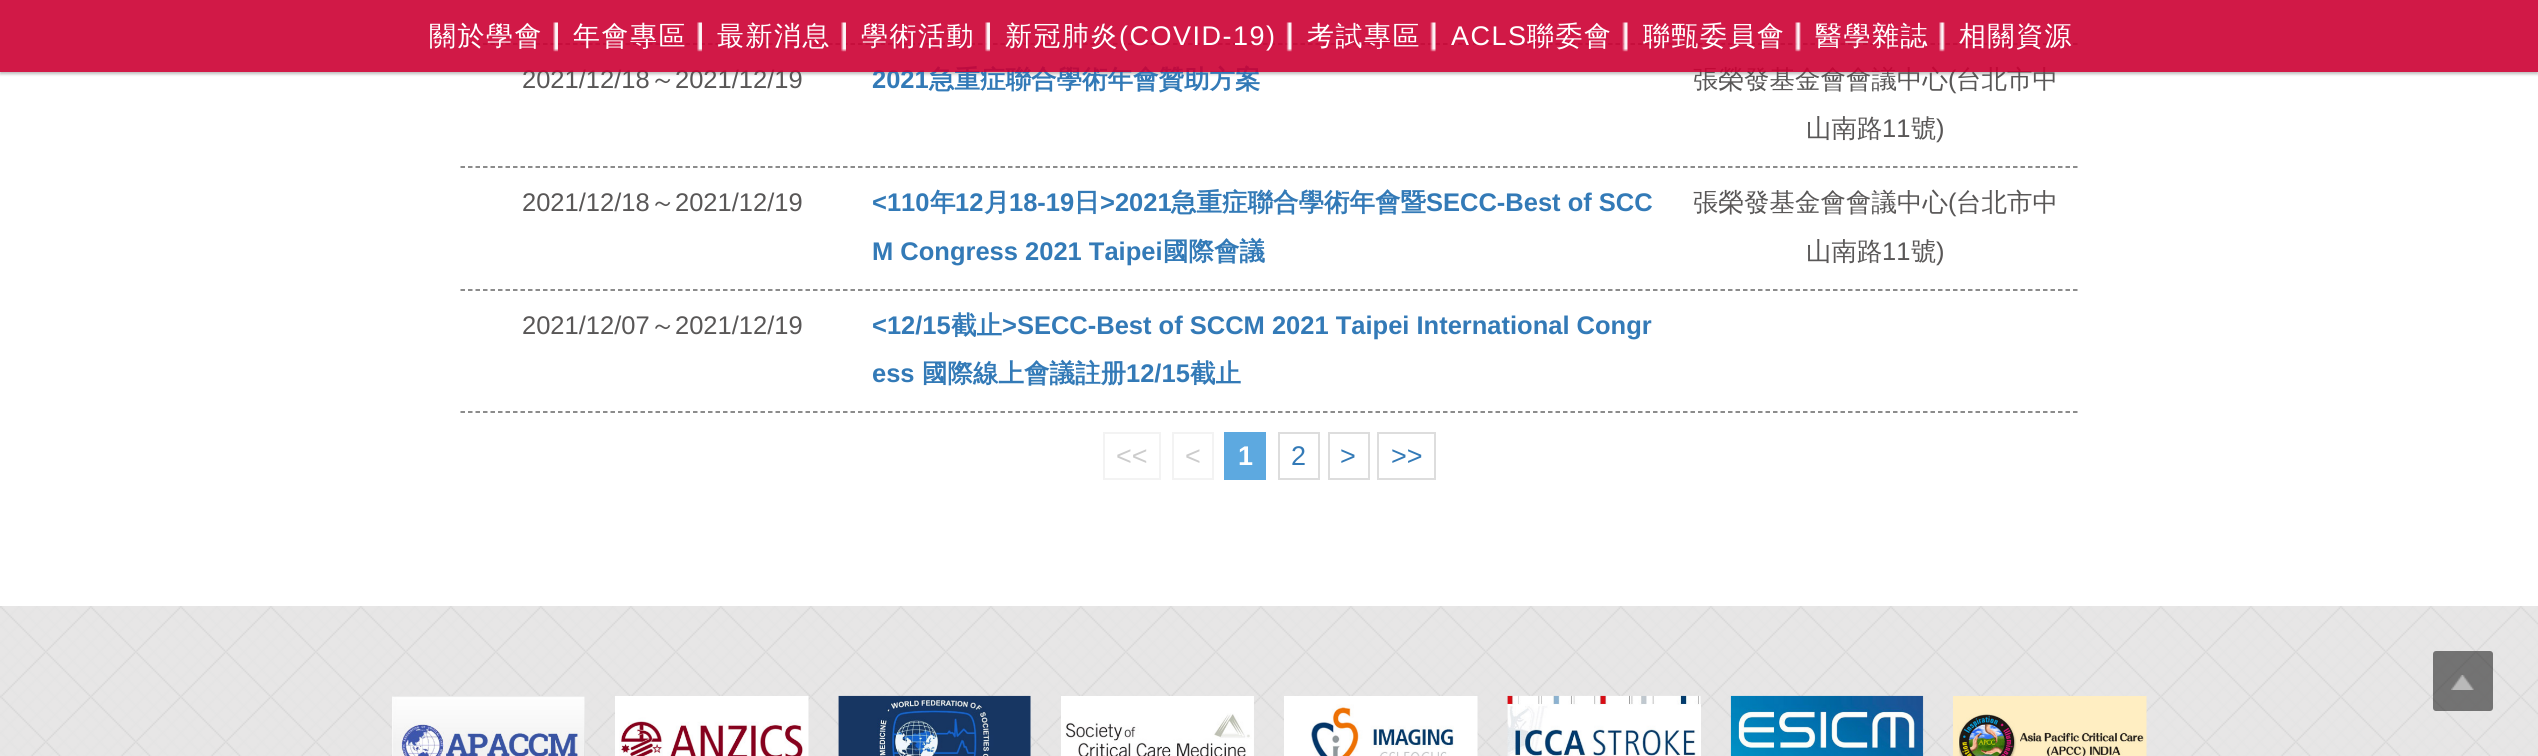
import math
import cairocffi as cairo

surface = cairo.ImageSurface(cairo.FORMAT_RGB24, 2538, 756)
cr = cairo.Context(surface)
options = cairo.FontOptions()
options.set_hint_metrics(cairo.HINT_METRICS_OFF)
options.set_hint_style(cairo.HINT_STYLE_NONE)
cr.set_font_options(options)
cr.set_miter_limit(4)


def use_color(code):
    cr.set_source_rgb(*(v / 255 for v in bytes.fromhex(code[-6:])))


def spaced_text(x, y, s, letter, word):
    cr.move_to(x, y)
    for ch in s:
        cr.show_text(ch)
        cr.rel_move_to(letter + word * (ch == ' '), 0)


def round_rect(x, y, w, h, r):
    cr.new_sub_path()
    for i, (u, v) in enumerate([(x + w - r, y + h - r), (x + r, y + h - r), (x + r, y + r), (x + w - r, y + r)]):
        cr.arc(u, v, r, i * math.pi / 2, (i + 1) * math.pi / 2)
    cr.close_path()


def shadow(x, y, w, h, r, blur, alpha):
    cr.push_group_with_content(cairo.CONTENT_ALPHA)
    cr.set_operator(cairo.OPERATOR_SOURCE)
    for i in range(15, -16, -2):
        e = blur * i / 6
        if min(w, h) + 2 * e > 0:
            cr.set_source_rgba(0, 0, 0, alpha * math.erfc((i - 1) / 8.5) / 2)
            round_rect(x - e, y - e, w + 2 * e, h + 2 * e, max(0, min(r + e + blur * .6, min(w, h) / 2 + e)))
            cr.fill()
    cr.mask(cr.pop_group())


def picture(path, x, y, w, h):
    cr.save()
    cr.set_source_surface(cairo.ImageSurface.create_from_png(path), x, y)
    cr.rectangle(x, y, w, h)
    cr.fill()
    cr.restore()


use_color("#ffffff")
cr.paint()
cr.new_path()
cr.move_to(460.5, 44)
cr.line_to(2077.5, 44)
use_color("#666666")
cr.set_line_width(1.5)
cr.set_dash([4.5, 3])
cr.stroke()
cr.save()
cr.rectangle(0, 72, 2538, 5)
cr.clip()
use_color("#bbbbbb")
shadow(0, 2, 2538, 72, 0, 1.5, 1)
cr.restore()
cr.select_font_face("Liberation Sans")
cr.set_font_size(25.5)
use_color("#595757")
cr.move_to(522, 88)
cr.show_text("2021/12/18")
cr.move_to(675, 88)
cr.show_text("2021/12/19")
cr.select_font_face("Liberation Sans", cairo.FONT_SLANT_NORMAL, cairo.FONT_WEIGHT_BOLD)
use_color("#337ab7")
cr.move_to(872, 88)
cr.show_text("2021")
cr.select_font_face("WenQuanYi Zen Hei", cairo.FONT_SLANT_NORMAL, cairo.FONT_WEIGHT_BOLD)
cr.move_to(929, 88)
cr.show_text("急重症聯合學術年會贊助方案")
cr.select_font_face("WenQuanYi Zen Hei Medium")
use_color("#595757")
cr.move_to(1693, 88)
cr.show_text("張榮發基金會會議中心")
cr.select_font_face("Liberation Sans")
cr.move_to(1948, 88)
cr.show_text("(")
cr.select_font_face("WenQuanYi Zen Hei Medium")
cr.move_to(1956, 88)
cr.show_text("台北市中")
cr.set_source_rgba(0.8, 0, 0.2, 0.9)
cr.rectangle(0, 0, 2538, 72)
cr.fill()
picture("img1.png", 553, 22, 5, 30)
cr.set_font_size(27)
use_color("#ffffff")
spaced_text(429, 45, "關於學會", 1.5, 0)
picture("img2.png", 697, 22, 5, 30)
spaced_text(573, 45, "年會專區", 1.5, 0)
picture("img3.png", 841, 22, 5, 30)
spaced_text(717, 45, "最新消息", 1.5, 0)
picture("img4.png", 985, 22, 5, 30)
spaced_text(861, 45, "學術活動", 1.5, 0)
picture("img5.png", 1286, 22, 6, 30)
spaced_text(1005, 45, "新冠肺炎", 1.5, 0)
cr.select_font_face("Liberation Sans")
spaced_text(1119, 45, "(COVID-19)", 1.5, 0)
picture("img6.png", 1430, 22, 6, 30)
cr.select_font_face("WenQuanYi Zen Hei Medium")
spaced_text(1307, 45, "考試專區", 1.5, 0)
picture("img7.png", 1622, 22, 6, 30)
cr.select_font_face("Liberation Sans")
spaced_text(1451, 45, "ACLS", 1.5, 0)
cr.select_font_face("WenQuanYi Zen Hei Medium")
spaced_text(1527, 45, "聯委會", 1.5, 0)
picture("img8.png", 1795, 22, 6, 30)
spaced_text(1643, 45, "聯甄委員會", 1.5, 0)
picture("img9.png", 1939, 22, 6, 30)
spaced_text(1815, 45, "醫學雜誌", 1.5, 0)
spaced_text(1959, 45, "相關資源", 1.5, 0)
cr.new_path()
cr.move_to(460.5, 167)
cr.line_to(2077.5, 167)
use_color("#666666")
cr.stroke()
cr.set_font_size(25.5)
use_color("#595757")
cr.move_to(650, 88)
cr.show_text("～")
cr.move_to(1806, 137)
cr.show_text("山南路")
cr.select_font_face("Liberation Sans")
cr.move_to(1882, 137)
cr.show_text("11")
cr.select_font_face("WenQuanYi Zen Hei Medium")
cr.move_to(1911, 137)
cr.show_text("號")
cr.select_font_face("Liberation Sans")
cr.move_to(1936, 137)
cr.show_text(")")
cr.new_path()
cr.move_to(460.5, 290)
cr.line_to(2077.5, 290)
use_color("#666666")
cr.stroke()
use_color("#595757")
cr.move_to(522, 211)
cr.show_text("2021/12/18")
cr.select_font_face("WenQuanYi Zen Hei Medium")
cr.move_to(650, 211)
cr.show_text("～")
cr.select_font_face("Liberation Sans")
cr.move_to(675, 211)
cr.show_text("2021/12/19")
cr.select_font_face("Liberation Sans", cairo.FONT_SLANT_NORMAL, cairo.FONT_WEIGHT_BOLD)
use_color("#337ab7")
cr.move_to(872, 211)
cr.show_text("<110")
cr.select_font_face("WenQuanYi Zen Hei", cairo.FONT_SLANT_NORMAL, cairo.FONT_WEIGHT_BOLD)
cr.move_to(930, 211)
cr.show_text("年")
cr.select_font_face("Liberation Sans", cairo.FONT_SLANT_NORMAL, cairo.FONT_WEIGHT_BOLD)
cr.move_to(955, 211)
cr.show_text("12")
cr.select_font_face("WenQuanYi Zen Hei", cairo.FONT_SLANT_NORMAL, cairo.FONT_WEIGHT_BOLD)
cr.move_to(984, 211)
cr.show_text("月")
cr.select_font_face("Liberation Sans", cairo.FONT_SLANT_NORMAL, cairo.FONT_WEIGHT_BOLD)
cr.move_to(1009, 211)
cr.show_text("18-19")
cr.select_font_face("WenQuanYi Zen Hei", cairo.FONT_SLANT_NORMAL, cairo.FONT_WEIGHT_BOLD)
cr.move_to(1074, 211)
cr.show_text("日")
cr.select_font_face("Liberation Sans", cairo.FONT_SLANT_NORMAL, cairo.FONT_WEIGHT_BOLD)
cr.move_to(1100, 211)
cr.show_text(">2021")
cr.select_font_face("WenQuanYi Zen Hei", cairo.FONT_SLANT_NORMAL, cairo.FONT_WEIGHT_BOLD)
cr.move_to(1171, 211)
cr.show_text("急重症聯合學術年會暨")
cr.select_font_face("Liberation Sans", cairo.FONT_SLANT_NORMAL, cairo.FONT_WEIGHT_BOLD)
cr.move_to(1426, 211)
cr.show_text("SECC-Best of SCC")
cr.move_to(872, 260)
cr.show_text("M Congress 2021 Taipei")
cr.select_font_face("WenQuanYi Zen Hei", cairo.FONT_SLANT_NORMAL, cairo.FONT_WEIGHT_BOLD)
cr.move_to(1163, 260)
cr.show_text("國際會議")
cr.select_font_face("WenQuanYi Zen Hei Medium")
use_color("#595757")
cr.move_to(1693, 211)
cr.show_text("張榮發基金會會議中心")
cr.select_font_face("Liberation Sans")
cr.move_to(1948, 211)
cr.show_text("(")
cr.select_font_face("WenQuanYi Zen Hei Medium")
cr.move_to(1956, 211)
cr.show_text("台北市中")
cr.move_to(1806, 260)
cr.show_text("山南路")
cr.select_font_face("Liberation Sans")
cr.move_to(1882, 260)
cr.show_text("11")
cr.select_font_face("WenQuanYi Zen Hei Medium")
cr.move_to(1911, 260)
cr.show_text("號")
cr.select_font_face("Liberation Sans")
cr.move_to(1936, 260)
cr.show_text(")")
cr.new_path()
cr.move_to(460.5, 412)
cr.line_to(2077.5, 412)
use_color("#666666")
cr.stroke()
use_color("#595757")
cr.move_to(522, 334)
cr.show_text("2021/12/07")
cr.select_font_face("WenQuanYi Zen Hei Medium")
cr.move_to(650, 334)
cr.show_text("～")
cr.select_font_face("Liberation Sans")
cr.move_to(675, 334)
cr.show_text("2021/12/19")
cr.select_font_face("Liberation Sans", cairo.FONT_SLANT_NORMAL, cairo.FONT_WEIGHT_BOLD)
use_color("#337ab7")
cr.move_to(872, 334)
cr.show_text("<12/15")
cr.select_font_face("WenQuanYi Zen Hei", cairo.FONT_SLANT_NORMAL, cairo.FONT_WEIGHT_BOLD)
cr.move_to(951, 334)
cr.show_text("截止")
cr.select_font_face("Liberation Sans", cairo.FONT_SLANT_NORMAL, cairo.FONT_WEIGHT_BOLD)
cr.move_to(1002, 334)
cr.show_text(">SECC-Best of SCCM 2021 Taipei International Congr")
cr.move_to(872, 382)
cr.show_text("ess")
cr.select_font_face("WenQuanYi Zen Hei", cairo.FONT_SLANT_NORMAL, cairo.FONT_WEIGHT_BOLD)
cr.move_to(922, 382)
cr.show_text("國際線上會議註册")
cr.select_font_face("Liberation Sans", cairo.FONT_SLANT_NORMAL, cairo.FONT_WEIGHT_BOLD)
cr.move_to(1126, 382)
cr.show_text("12/15")
cr.select_font_face("WenQuanYi Zen Hei", cairo.FONT_SLANT_NORMAL, cairo.FONT_WEIGHT_BOLD)
cr.move_to(1190, 382)
cr.show_text("截止")
cr.rectangle(1104, 433, 56, 46)
use_color("#f3f3f3")
cr.set_line_width(2)
cr.set_dash([])
cr.stroke()
cr.select_font_face("Liberation Sans")
cr.set_font_size(27)
use_color("#cccccc")
cr.move_to(1116, 465)
cr.show_text("<<")
cr.rectangle(1173, 433, 40, 46)
use_color("#f3f3f3")
cr.stroke()
use_color("#cccccc")
cr.move_to(1185, 465)
cr.show_text("<")
use_color("#5da9e0")
cr.rectangle(1224, 432, 42, 48)
cr.fill()
cr.select_font_face("Liberation Sans", cairo.FONT_SLANT_NORMAL, cairo.FONT_WEIGHT_BOLD)
use_color("#ffffff")
cr.move_to(1238, 465)
cr.show_text("1")
cr.rectangle(1279, 433, 40, 46)
use_color("#dddddd")
cr.stroke()
cr.select_font_face("Liberation Sans")
use_color("#337ab7")
cr.move_to(1291, 465)
cr.show_text("2")
cr.rectangle(1329, 433, 40, 46)
use_color("#dddddd")
cr.stroke()
use_color("#337ab7")
cr.move_to(1340, 465)
cr.show_text(">")
cr.rectangle(1378, 433, 57, 46)
use_color("#dddddd")
cr.stroke()
use_color("#337ab7")
cr.move_to(1391, 465)
cr.show_text(">>")
picture("img10.png", 0, 606, 2538, 150)
picture("img11.png", 392, 696, 193, 60)
picture("img12.png", 615, 696, 194, 60)
picture("img13.png", 838, 695, 193, 61)
picture("img14.png", 1061, 696, 193, 60)
picture("img15.png", 1284, 696, 194, 60)
picture("img16.png", 1507, 695, 194, 61)
picture("img17.png", 1730, 695, 194, 61)
picture("img18.png", 1953, 696, 194, 60)
cr.set_source_rgba(0, 0, 0, 0.5)
round_rect(2433, 651, 60, 60, 3)
cr.fill()
picture("img19.png", 2451, 675, 23, 15)
surface.write_to_png("result.png")
